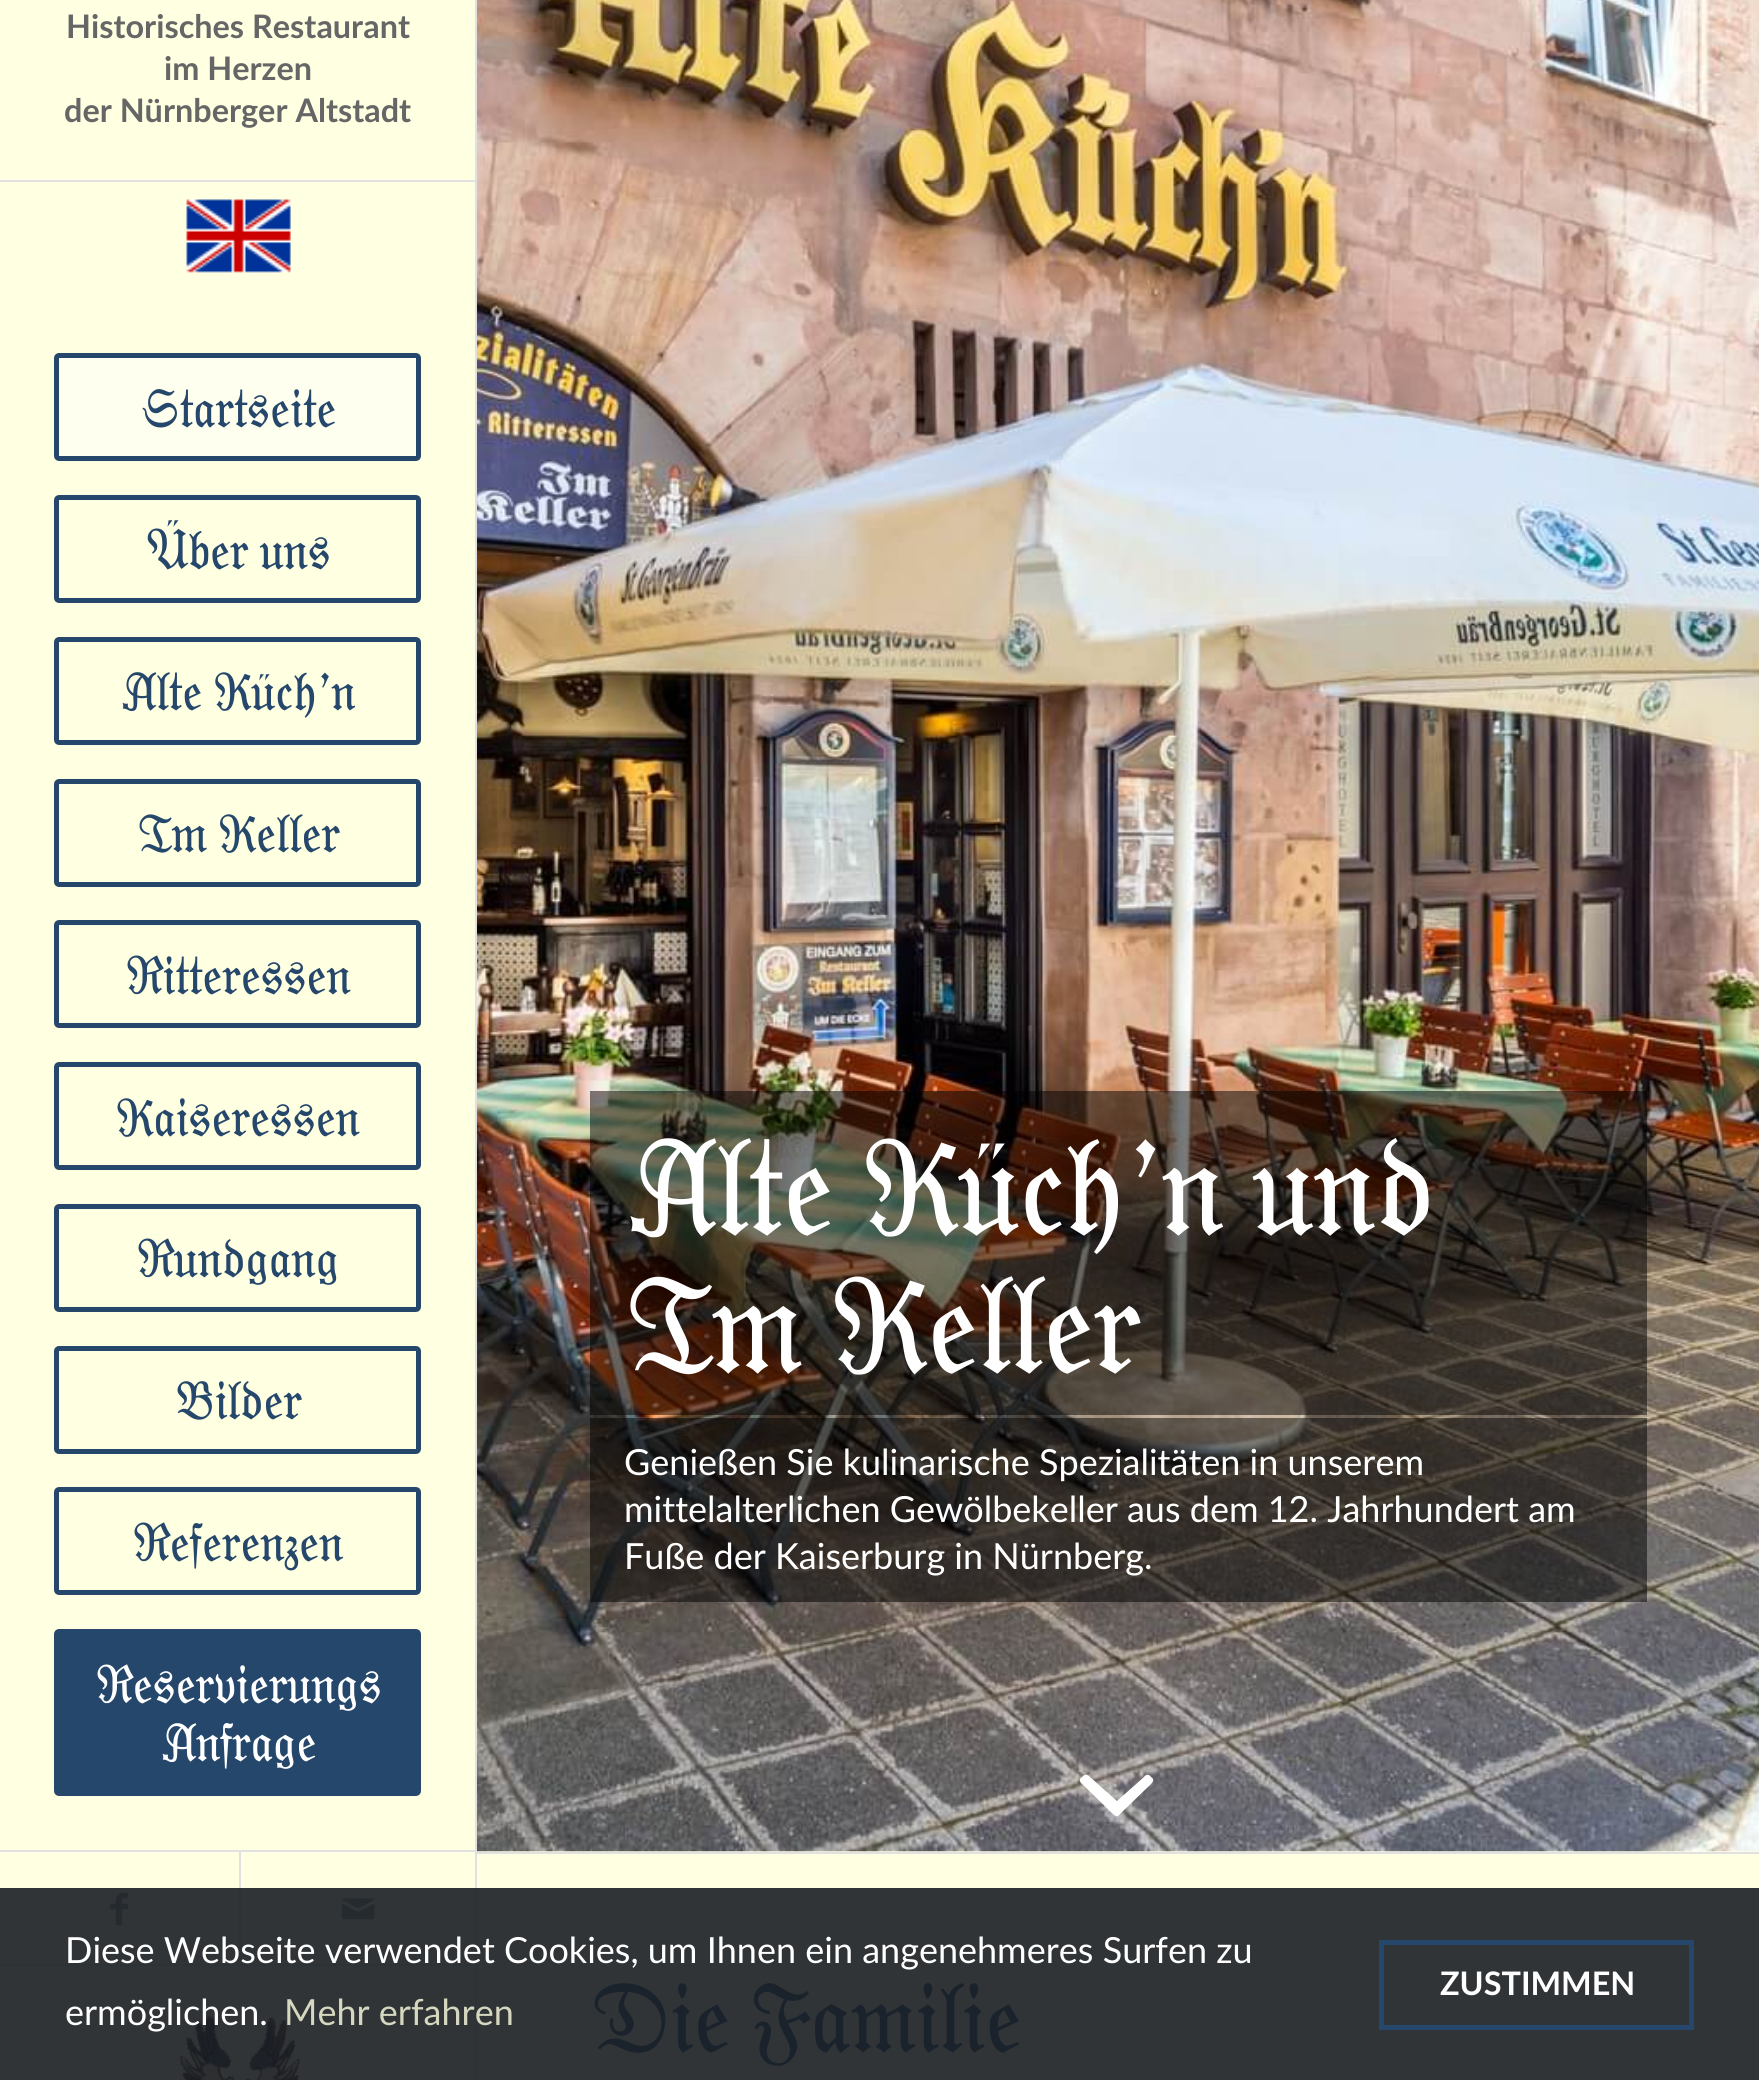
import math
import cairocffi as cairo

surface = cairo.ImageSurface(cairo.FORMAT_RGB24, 1759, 2080)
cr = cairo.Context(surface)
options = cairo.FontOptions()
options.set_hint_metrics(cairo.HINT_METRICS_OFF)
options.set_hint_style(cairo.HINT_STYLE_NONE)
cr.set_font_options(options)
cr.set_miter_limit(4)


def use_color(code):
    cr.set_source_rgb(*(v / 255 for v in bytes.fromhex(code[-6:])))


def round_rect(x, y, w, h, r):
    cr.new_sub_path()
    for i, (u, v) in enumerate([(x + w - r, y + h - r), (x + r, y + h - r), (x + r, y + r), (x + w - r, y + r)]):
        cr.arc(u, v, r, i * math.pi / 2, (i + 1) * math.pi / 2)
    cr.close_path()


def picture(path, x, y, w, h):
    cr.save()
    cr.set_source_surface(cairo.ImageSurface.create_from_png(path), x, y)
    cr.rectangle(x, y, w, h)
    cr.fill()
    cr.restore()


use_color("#ffffe1")
cr.paint()
use_color("#303437")
cr.rectangle(0, 1888, 1759, 192)
cr.fill()
use_color("#e1e1e1")
cr.rectangle(0, 180, 475, 2)
cr.fill()
cr.select_font_face("Lato", cairo.FONT_SLANT_NORMAL, cairo.FONT_WEIGHT_BOLD)
cr.set_font_size(32.4)
use_color("#666666")
cr.move_to(66, 38)
cr.show_text("Historisches Restaurant")
cr.move_to(164, 80)
cr.show_text("im Herzen")
cr.move_to(64, 122)
cr.show_text("der Nürnberger Altstadt")
picture("img1.png", 186, 199, 105, 74)
use_color("#ffffef")
round_rect(56.5, 355.5, 362, 103, 2.5)
cr.fill_preserve()
use_color("#26476c")
cr.set_line_width(5)
cr.stroke()
cr.select_font_face("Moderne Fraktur")
cr.set_font_size(49.5)
cr.move_to(140, 426)
cr.show_text("Startseite")
round_rect(56.5, 497.5, 362, 103, 2.5)
cr.stroke()
cr.move_to(145, 568)
cr.show_text("Über uns")
round_rect(56.5, 639.5, 362, 103, 2.5)
cr.stroke()
cr.move_to(120, 709)
cr.show_text("Alte Küch’n")
round_rect(56.5, 781.5, 362, 103, 2.5)
cr.stroke()
cr.move_to(137, 851)
cr.show_text("Im Keller")
round_rect(56.5, 922.5, 362, 103, 2.5)
cr.stroke()
cr.move_to(125, 993)
cr.show_text("Ritteressen")
round_rect(56.5, 1064.5, 362, 103, 2.5)
cr.stroke()
cr.move_to(115, 1135)
cr.show_text("Kaiseressen")
round_rect(56.5, 1206.5, 362, 103, 2.5)
cr.stroke()
cr.move_to(136, 1276)
cr.show_text("Rundgang")
round_rect(56.5, 1348.5, 362, 103, 2.5)
cr.stroke()
cr.move_to(175, 1418)
cr.show_text("Bilder")
round_rect(56.5, 1489.5, 362, 103, 2.5)
cr.stroke()
cr.move_to(132, 1560)
cr.show_text("Referenzen")
round_rect(56.5, 1631.5, 362, 162, 2.5)
cr.fill_preserve()
cr.stroke()
use_color("#ffffff")
cr.move_to(95, 1702)
cr.show_text("Reservierungs")
cr.move_to(160, 1760)
cr.show_text("Anfrage")
use_color("#e1e1e1")
cr.rectangle(0, 1850, 475, 2)
cr.fill()
picture("img2.png", 110, 1892, 19, 34)
cr.rectangle(239, 1852, 2, 36)
cr.fill()
use_color("#2d3237")
cr.rectangle(239, 1888, 2, 76)
cr.fill()
picture("img3.png", 342, 1898, 33, 22)
cr.rectangle(0, 1964, 475, 2)
cr.fill()
picture("img4.png", 179, 2015, 121, 65)
use_color("#e1e1e1")
cr.rectangle(475, 0, 2, 1888)
cr.fill()
use_color("#2d3237")
cr.rectangle(475, 1888, 2, 192)
cr.fill()
picture("img5.png", 477, 0, 1282, 1852)
cr.set_source_rgba(0, 0, 0, 0.5)
cr.rectangle(590, 1091, 1057, 324)
cr.fill()
cr.set_font_size(126)
use_color("#ffffff")
cr.move_to(624, 1232)
cr.show_text("Alte Küch’n und")
cr.move_to(624, 1370)
cr.show_text("Im Keller")
cr.set_source_rgba(0, 0, 0, 0.5)
cr.rectangle(590, 1418, 1057, 184)
cr.fill()
cr.select_font_face("Lato")
cr.set_font_size(36)
use_color("#ffffff")
cr.move_to(624, 1475)
cr.show_text("Genießen Sie kulinarische Spezialitäten in unserem")
cr.move_to(624, 1522)
cr.show_text("mittelalterlichen Gewölbekeller aus dem 12. Jahrhundert am")
cr.move_to(624, 1569)
cr.show_text("Fuße der Kaiserburg in Nürnberg.")
cr.new_path()
cr.move_to(1144, 1777)
cr.curve_to(1146, 1774, 1149, 1774, 1151, 1777)
cr.curve_to(1154, 1779, 1154, 1781, 1151, 1784)
cr.line_to(1120, 1814)
cr.curve_to(1118, 1817, 1116, 1817, 1113, 1814)
cr.line_to(1082, 1784)
cr.curve_to(1079, 1781, 1079, 1779, 1082, 1777)
cr.curve_to(1085, 1774, 1087, 1774, 1090, 1777)
cr.line_to(1117, 1801)
cr.close_path()
cr.fill()
use_color("#e1e1e1")
cr.rectangle(477, 1852, 1282, 2)
cr.fill()
cr.select_font_face("Moderne Fraktur")
cr.set_font_size(90)
use_color("#1a222b")
cr.move_to(590, 2050)
cr.show_text("Die Familie")
cr.select_font_face("Lato")
cr.set_font_size(36)
use_color("#ffffff")
cr.move_to(65, 1963)
cr.show_text("Diese Webseite verwendet Cookies, um Ihnen ein angenehmeres Surfen zu")
cr.move_to(65, 2025)
cr.show_text("ermöglichen.")
use_color("#d6d7bf")
cr.move_to(284, 2025)
cr.show_text("Mehr erfahren")
cr.rectangle(1381.5, 1942.5, 310, 85)
use_color("#26476c")
cr.stroke()
cr.select_font_face("Lato", cairo.FONT_SLANT_NORMAL, cairo.FONT_WEIGHT_BOLD)
cr.set_font_size(32.4)
use_color("#ffffff")
cr.move_to(1440, 1995)
cr.show_text("ZUSTIMMEN")
surface.write_to_png("result.png")
